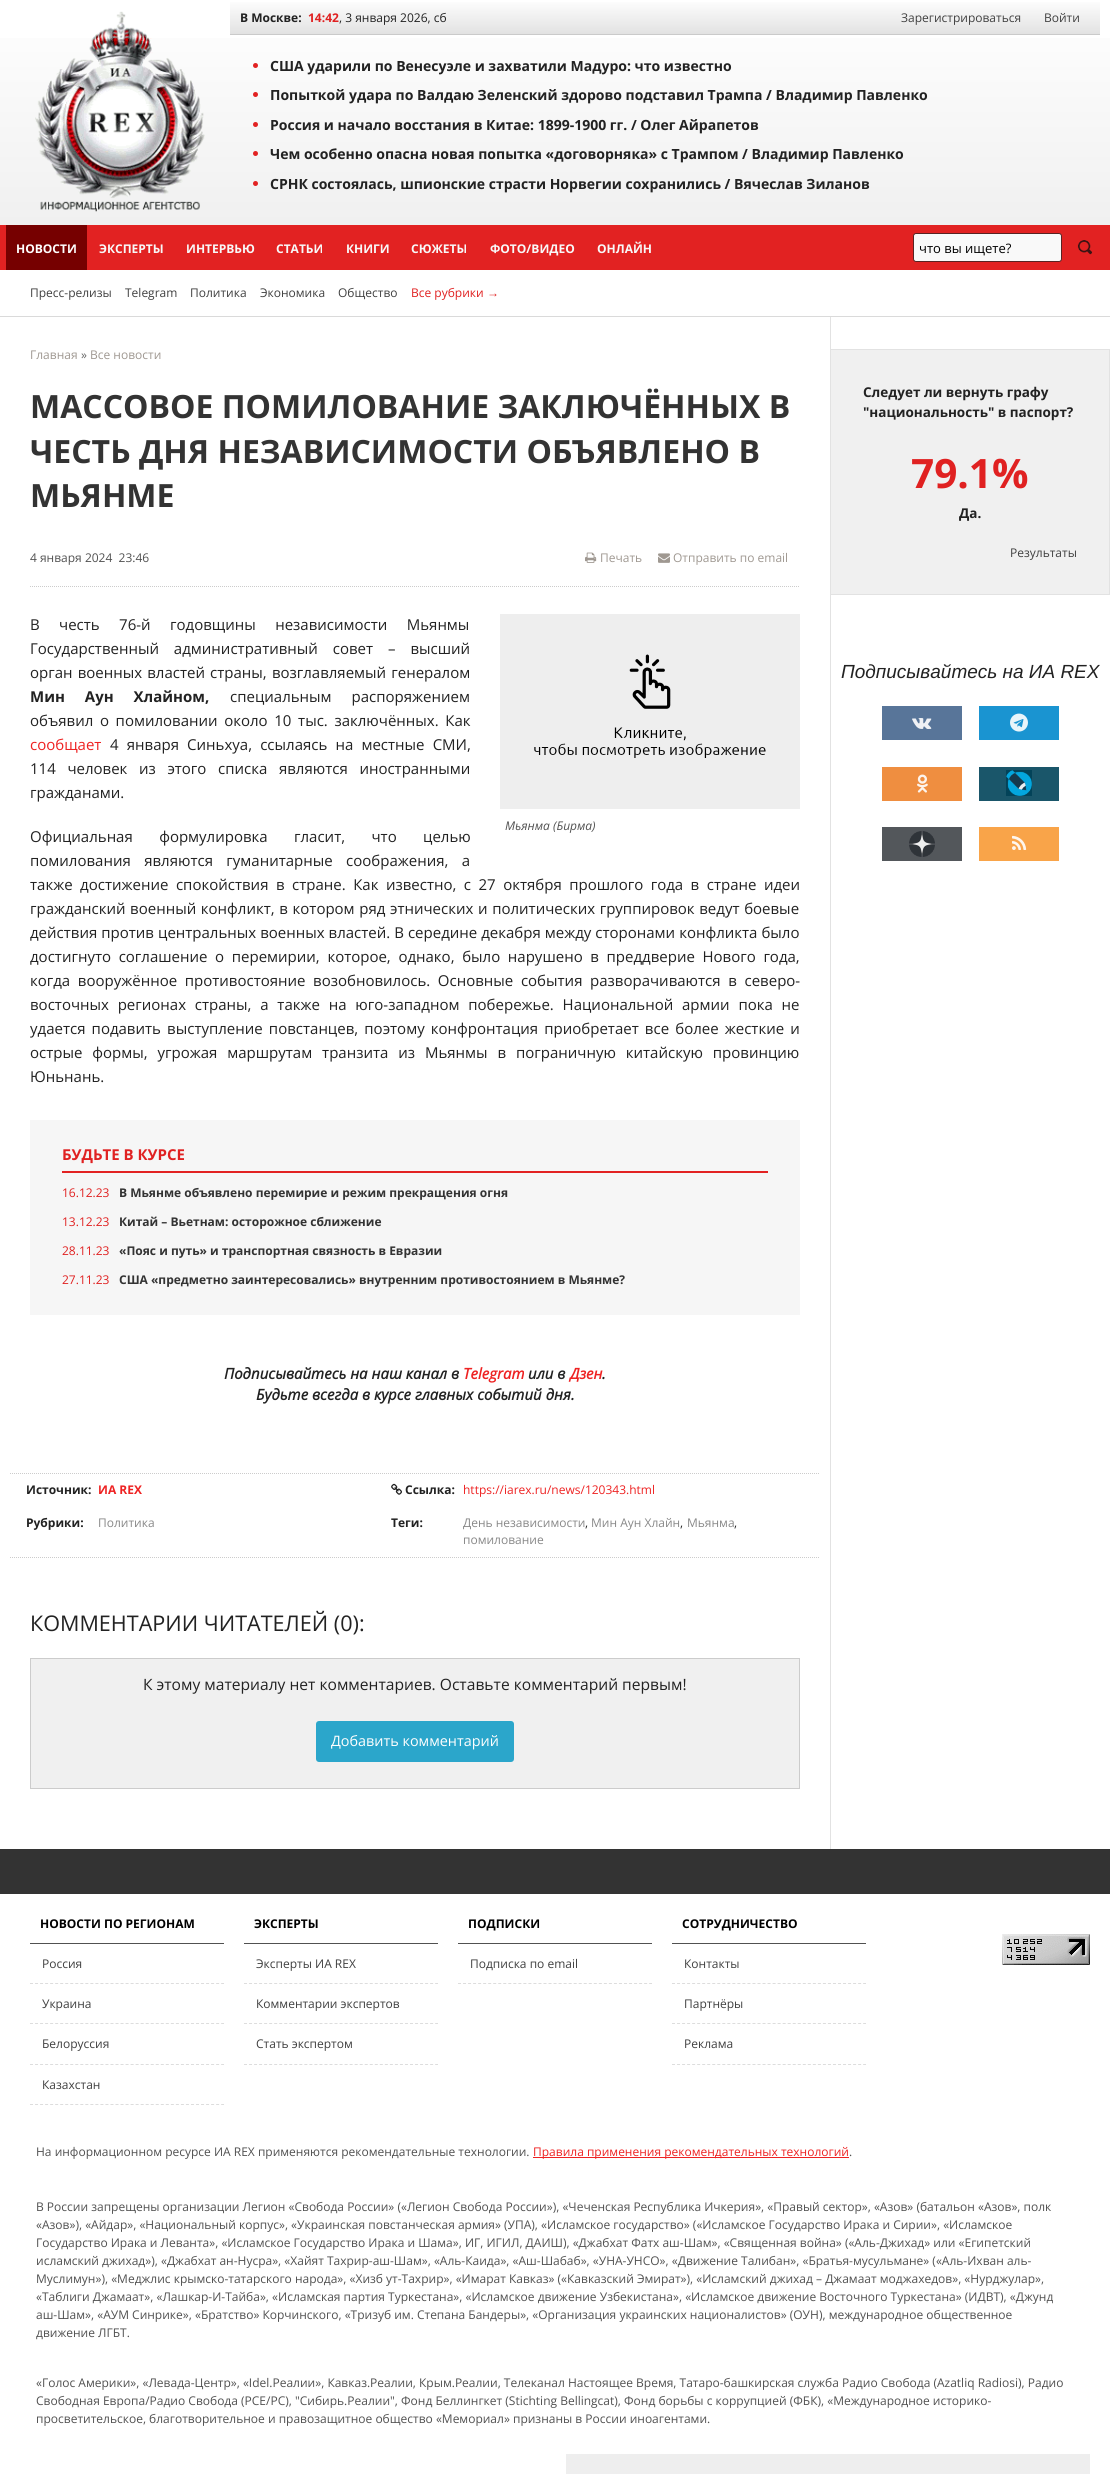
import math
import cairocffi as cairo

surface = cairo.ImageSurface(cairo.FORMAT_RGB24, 1110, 2474)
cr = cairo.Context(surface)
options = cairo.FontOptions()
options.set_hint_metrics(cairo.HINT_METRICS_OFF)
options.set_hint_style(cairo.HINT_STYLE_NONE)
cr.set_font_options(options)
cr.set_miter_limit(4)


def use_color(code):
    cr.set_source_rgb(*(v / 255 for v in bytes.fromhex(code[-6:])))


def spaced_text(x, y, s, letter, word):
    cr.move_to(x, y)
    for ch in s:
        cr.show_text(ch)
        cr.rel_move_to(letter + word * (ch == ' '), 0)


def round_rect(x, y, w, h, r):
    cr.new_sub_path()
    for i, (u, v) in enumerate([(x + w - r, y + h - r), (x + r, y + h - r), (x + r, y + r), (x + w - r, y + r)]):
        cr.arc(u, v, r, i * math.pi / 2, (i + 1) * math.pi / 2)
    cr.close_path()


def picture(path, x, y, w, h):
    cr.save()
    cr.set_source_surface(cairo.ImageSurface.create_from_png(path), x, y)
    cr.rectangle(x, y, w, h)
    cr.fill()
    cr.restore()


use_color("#ffffff")
cr.paint()
gradient = cairo.LinearGradient(555, 0, 555, 225)
gradient.add_color_stop_rgba(0, 1, 1, 1, 1)
gradient.add_color_stop_rgba(1, 0.941, 0.941, 0.941, 1)
cr.set_source(gradient)
cr.rectangle(0, 38, 1110, 187)
cr.fill()
picture("img1.png", 35, 11, 170, 201)
gradient = cairo.LinearGradient(665, 0, 665, 34)
gradient.add_color_stop_rgba(0, 0.996, 0.996, 0.996, 1)
gradient.add_color_stop_rgba(1, 0.886, 0.886, 0.886, 1)
cr.set_source(gradient)
cr.rectangle(230, 2, 870, 32)
cr.fill()
use_color("#cacaca")
cr.rectangle(230, 34, 870, 1)
cr.fill()
cr.select_font_face("Open Sans", cairo.FONT_SLANT_NORMAL, cairo.FONT_WEIGHT_BOLD)
cr.set_font_size(12)
use_color("#222222")
cr.move_to(240, 22)
cr.show_text("В Москве:")
use_color("#e02121")
cr.move_to(308, 22)
cr.show_text("14:42")
cr.select_font_face("Open Sans")
use_color("#222222")
cr.move_to(339, 22)
cr.show_text(", 3 января 2026, сб")
use_color("#404040")
cr.move_to(901, 22)
cr.show_text("Зарегистрироваться")
cr.move_to(1044, 22)
cr.show_text("Войти")
use_color("#e22222")
cr.new_path()
cr.arc(255.5, 65.5, 2.5, 0, 2 * math.pi)
cr.fill()
cr.select_font_face("Open Sans", cairo.FONT_SLANT_NORMAL, cairo.FONT_WEIGHT_BOLD)
cr.set_font_size(14)
use_color("#222222")
cr.move_to(270, 71)
cr.show_text("США ударили по Венесуэле и захватили Мадуро: что известно")
use_color("#e22222")
cr.new_path()
cr.arc(255.5, 94.5, 2.5, 0, 2 * math.pi)
cr.fill()
use_color("#222222")
cr.move_to(270, 100)
cr.show_text("Попыткой удара по Валдаю Зеленский здорово подставил Трампа / Владимир Павленко")
use_color("#e22222")
cr.new_path()
cr.arc(255.5, 124.5, 2.5, 0, 2 * math.pi)
cr.fill()
use_color("#222222")
cr.move_to(270, 130)
cr.show_text("Россия и начало восстания в Китае: 1899-1900 гг. / Олег Айрапетов")
use_color("#e22222")
cr.new_path()
cr.arc(255.5, 153.5, 2.5, 0, 2 * math.pi)
cr.fill()
use_color("#222222")
cr.move_to(270, 159)
cr.show_text("Чем особенно опасна новая попытка «договорняка» с Трампом / Владимир Павленко")
use_color("#e22222")
cr.new_path()
cr.arc(255.5, 183.5, 2.5, 0, 2 * math.pi)
cr.fill()
use_color("#222222")
cr.move_to(270, 189)
cr.show_text("СРНК состоялась, шпионские страсти Норвегии сохранились / Вячеслав Зиланов")
use_color("#e22222")
cr.rectangle(0, 225, 1110, 45)
cr.fill()
use_color("#760000")
cr.rectangle(6, 225, 81, 45)
cr.fill()
cr.set_font_size(12)
use_color("#fefefe")
cr.move_to(16, 253)
cr.show_text("НОВОСТИ")
use_color("#f8f8f8")
cr.move_to(99, 253)
cr.show_text("ЭКСПЕРТЫ")
cr.move_to(186, 253)
cr.show_text("ИНТЕРВЬЮ")
cr.move_to(276, 253)
cr.show_text("СТАТЬИ")
cr.move_to(346, 253)
cr.show_text("КНИГИ")
cr.move_to(411, 253)
cr.show_text("СЮЖЕТЫ")
cr.move_to(490, 253)
cr.show_text("ФОТО/ВИДЕО")
cr.move_to(597, 253)
cr.show_text("ОНЛАЙН")
use_color("#f9f9f9")
round_rect(913.5, 233.5, 148, 28, 2.5)
cr.fill_preserve()
use_color("#592323")
cr.set_line_width(1)
cr.stroke()
cr.select_font_face("Open Sans")
cr.set_font_size(13)
use_color("#000000")
cr.move_to(919, 253)
cr.show_text("что вы ищете?")
picture("img2.png", 1077, 240, 16, 15)
use_color("#dadada")
cr.rectangle(0, 316, 1110, 1)
cr.fill()
cr.set_font_size(12)
use_color("#404040")
cr.move_to(30, 297)
cr.show_text("Пресс-релизы")
cr.move_to(125, 297)
cr.show_text("Telegram")
cr.move_to(190, 297)
cr.show_text("Политика")
cr.move_to(260, 297)
cr.show_text("Экономика")
cr.move_to(338, 297)
cr.show_text("Общество")
use_color("#e02121")
cr.move_to(411, 297)
cr.show_text("Все рубрики")
cr.select_font_face("Liberation Sans")
cr.move_to(487, 297)
cr.show_text("→")
cr.select_font_face("Open Sans")
use_color("#9f9891")
cr.move_to(30, 359)
cr.show_text("Главная")
use_color("#666666")
cr.move_to(81, 359)
cr.show_text("»")
use_color("#9f9891")
cr.move_to(90, 359)
cr.show_text("Все новости")
cr.select_font_face("Open Sans", cairo.FONT_SLANT_NORMAL, cairo.FONT_WEIGHT_BOLD)
cr.set_font_size(32)
use_color("#333333")
cr.move_to(30, 418)
cr.show_text("МАССОВОЕ ПОМИЛОВАНИЕ ЗАКЛЮЧЁННЫХ В")
cr.move_to(30, 463)
cr.show_text("ЧЕСТЬ ДНЯ НЕЗАВИСИМОСТИ ОБЪЯВЛЕНО В")
cr.move_to(30, 507)
cr.show_text("МЬЯНМЕ")
cr.new_path()
cr.move_to(30, 586.5)
cr.line_to(800, 586.5)
use_color("#cccccc")
cr.set_dash([1, 1])
cr.stroke()
cr.select_font_face("Open Sans")
cr.set_font_size(12)
use_color("#515151")
cr.move_to(30, 562)
cr.show_text("4 января 2024  23:46")
picture("img3.png", 585, 552, 12, 11)
use_color("#9f9891")
cr.move_to(600, 562)
cr.show_text("Печать")
picture("img4.png", 658, 553, 12, 10)
cr.move_to(673, 562)
cr.show_text("Отправить по email")
cr.set_font_size(15)
use_color("#222222")
spaced_text(30, 630, "В честь 76-й годовщины независимости Мьянмы", 0, 15.5)
spaced_text(30, 654, "Государственный административный совет – высший", 0, 11)
spaced_text(30, 678, "орган военных властей страны, возглавляемый генералом", 0, 1.25)
cr.select_font_face("Open Sans", cairo.FONT_SLANT_NORMAL, cairo.FONT_WEIGHT_BOLD)
spaced_text(30, 702, "Мин Аун Хлайном,", 0, 16)
cr.select_font_face("Open Sans")
spaced_text(230, 702, "специальным распоряжением", 0, 16)
spaced_text(30, 726, "объявил о помиловании около 10 тыс. заключённых. Как", 0, 2.75)
use_color("#ee2222")
cr.move_to(30, 750)
cr.show_text("сообщает")
use_color("#222222")
spaced_text(110, 750, "4 января Синьхуа, ссылаясь на местные СМИ,", 0, 4.25)
spaced_text(30, 774, "114 человек из этого списка являются иностранными", 0, 7.75)
cr.move_to(30, 798)
cr.show_text("гражданами.")
spaced_text(30, 842, "Официальная формулировка гласит, что целью", 0, 22.5)
spaced_text(30, 866, "помилования являются гуманитарные соображения, а", 0, 9.5)
spaced_text(30, 890, "также достижение спокойствия в стране. Как известно, с 27 октября прошлого года в стране идеи", 0, 3.6)
spaced_text(30, 914, "гражданский военный конфликт, в котором ряд этнических и политических группировок ведут боевые", 0, 0.75)
spaced_text(30, 938, "действия против центральных военных властей. В середине декабря между сторонами конфликта было", 0, 0.1)
spaced_text(30, 962, "достигнуто соглашение о перемирии, которое, однако, было нарушено в преддверие Нового года,", 0, 3.75)
spaced_text(30, 986, "когда вооружённое противостояние возобновилось. Основные события разворачиваются в северо-", 0, 3.75)
spaced_text(30, 1010, "восточных регионах страны, а также на юго-западном побережье. Национальной армии пока не", 0, 4.9)
spaced_text(30, 1034, "удается подавить выступление повстанцев, поэтому конфронтация приобретает все более жесткие и", 0, 2.25)
spaced_text(30, 1058, "острые формы, угрожая маршрутам транзита из Мьянмы в пограничную китайскую провинцию", 0, 6)
cr.move_to(30, 1082)
cr.show_text("Юньнань.")
use_color("#f6f6f6")
cr.rectangle(30, 1120, 770, 195)
cr.fill()
use_color("#e22222")
cr.rectangle(62, 1171, 706, 2)
cr.fill()
cr.select_font_face("Open Sans", cairo.FONT_SLANT_NORMAL, cairo.FONT_WEIGHT_BOLD)
use_color("#e02121")
cr.move_to(62, 1160)
cr.show_text("БУДЬТЕ В КУРСЕ")
cr.select_font_face("Open Sans")
cr.set_font_size(12)
cr.move_to(62, 1197)
cr.show_text("16.12.23")
cr.select_font_face("Open Sans", cairo.FONT_SLANT_NORMAL, cairo.FONT_WEIGHT_BOLD)
use_color("#333333")
cr.move_to(119, 1197)
cr.show_text("В Мьянме объявлено перемирие и режим прекращения огня")
cr.select_font_face("Open Sans")
use_color("#e02121")
cr.move_to(62, 1226)
cr.show_text("13.12.23")
cr.select_font_face("Open Sans", cairo.FONT_SLANT_NORMAL, cairo.FONT_WEIGHT_BOLD)
use_color("#333333")
cr.move_to(119, 1226)
cr.show_text("Китай – Вьетнам: осторожное сближение")
cr.select_font_face("Open Sans")
use_color("#e02121")
cr.move_to(62, 1255)
cr.show_text("28.11.23")
cr.select_font_face("Open Sans", cairo.FONT_SLANT_NORMAL, cairo.FONT_WEIGHT_BOLD)
use_color("#333333")
cr.move_to(119, 1255)
cr.show_text("«Пояс и путь» и транспортная связность в Евразии")
cr.select_font_face("Open Sans")
use_color("#e02121")
cr.move_to(62, 1284)
cr.show_text("27.11.23")
cr.select_font_face("Open Sans", cairo.FONT_SLANT_NORMAL, cairo.FONT_WEIGHT_BOLD)
use_color("#333333")
cr.move_to(119, 1284)
cr.show_text("США «предметно заинтересовались» внутренним противостоянием в Мьянме?")
cr.select_font_face("Open Sans", cairo.FONT_SLANT_ITALIC, cairo.FONT_WEIGHT_BOLD)
cr.set_font_size(15)
use_color("#222222")
cr.move_to(224, 1379)
cr.show_text("Подписывайтесь на наш канал в")
use_color("#ee2222")
cr.move_to(463, 1379)
cr.show_text("Telegram")
use_color("#222222")
cr.move_to(528, 1379)
cr.show_text("или в")
use_color("#ee2222")
cr.move_to(570, 1379)
cr.show_text("Дзен")
use_color("#222222")
cr.move_to(602, 1379)
cr.show_text(".")
cr.move_to(256, 1400)
cr.show_text("Будьте всегда в курсе главных событий дня.")
picture("img5.png", 500, 614, 300, 195)
cr.select_font_face("Open Sans", cairo.FONT_SLANT_ITALIC)
cr.set_font_size(12)
use_color("#515151")
cr.move_to(505, 830)
cr.show_text("Мьянма (Бирма)")
cr.new_path()
cr.move_to(10, 1473.5)
cr.line_to(820, 1473.5)
use_color("#cccccc")
cr.stroke()
cr.new_path()
cr.move_to(10, 1557.5)
cr.line_to(820, 1557.5)
cr.stroke()
cr.select_font_face("Open Sans", cairo.FONT_SLANT_NORMAL, cairo.FONT_WEIGHT_BOLD)
use_color("#222222")
cr.move_to(26, 1494)
cr.show_text("Источник:")
use_color("#ee2222")
cr.move_to(98, 1494)
cr.show_text("ИА REX")
picture("img6.png", 391, 1483, 11, 12)
use_color("#222222")
cr.move_to(405, 1494)
cr.show_text("Ссылка:")
cr.select_font_face("Open Sans")
use_color("#ee2222")
cr.move_to(463, 1494)
cr.show_text("https://iarex.ru/news/120343.html")
cr.select_font_face("Open Sans", cairo.FONT_SLANT_NORMAL, cairo.FONT_WEIGHT_BOLD)
use_color("#222222")
cr.move_to(26, 1527)
cr.show_text("Рубрики:")
cr.select_font_face("Open Sans")
use_color("#888888")
cr.move_to(98, 1527)
cr.show_text("Политика")
cr.select_font_face("Open Sans", cairo.FONT_SLANT_NORMAL, cairo.FONT_WEIGHT_BOLD)
use_color("#222222")
cr.move_to(391, 1527)
cr.show_text("Теги:")
cr.select_font_face("Open Sans")
use_color("#888888")
cr.move_to(463, 1527)
cr.show_text("День независимости")
use_color("#222222")
cr.move_to(585, 1527)
cr.show_text(",")
use_color("#888888")
cr.move_to(591, 1527)
cr.show_text("Мин Аун Хлайн")
use_color("#222222")
cr.move_to(680, 1527)
cr.show_text(",")
use_color("#888888")
cr.move_to(687, 1527)
cr.show_text("Мьянма")
use_color("#222222")
cr.move_to(734, 1527)
cr.show_text(",")
use_color("#888888")
cr.move_to(463, 1544)
cr.show_text("помилование")
cr.set_font_size(21.6)
use_color("#222222")
cr.move_to(30, 1631)
cr.show_text("КОММЕНТАРИИ ЧИТАТЕЛЕЙ (0):")
use_color("#f0f0f0")
cr.rectangle(30.5, 1658.5, 769, 130)
cr.fill_preserve()
use_color("#cccccc")
cr.set_dash([])
cr.stroke()
cr.set_font_size(15.6)
use_color("#222222")
cr.move_to(143, 1690)
cr.show_text("К этому материалу нет комментариев. Оставьте комментарий первым!")
use_color("#2ba6cb")
round_rect(316, 1721, 198, 41, 3)
cr.fill()
cr.set_font_size(14.4)
use_color("#fefefe")
cr.move_to(331, 1746)
cr.show_text("Добавить комментарий")
use_color("#e2e2e2")
cr.rectangle(830, 317, 1, 1532)
cr.fill()
use_color("#f0f0f0")
cr.rectangle(831, 350, 278, 244)
cr.fill()
use_color("#e2e2e2")
cr.rectangle(831, 349, 279, 1)
cr.fill()
cr.rectangle(1109, 349, 1, 246)
cr.fill()
cr.rectangle(831, 594, 279, 1)
cr.fill()
cr.select_font_face("Open Sans", cairo.FONT_SLANT_NORMAL, cairo.FONT_WEIGHT_BOLD)
cr.set_font_size(13.5)
use_color("#222222")
cr.move_to(863, 397)
cr.show_text("Следует ли вернуть графу")
cr.move_to(863, 417)
cr.show_text("\"национальность\" в паспорт?")
cr.set_font_size(40.5)
use_color("#e02121")
cr.move_to(911, 488)
cr.show_text("79.1%")
cr.set_font_size(13.5)
use_color("#222222")
cr.move_to(959, 518)
cr.show_text("Да.")
cr.select_font_face("Open Sans")
cr.set_font_size(12)
use_color("#404040")
cr.move_to(1010, 557)
cr.show_text("Результаты")
cr.select_font_face("Liberation Sans", cairo.FONT_SLANT_ITALIC)
cr.set_font_size(19)
use_color("#222222")
cr.move_to(841, 678)
cr.show_text("Подписывайтесь на ИА REX")
use_color("#587599")
cr.rectangle(882, 706, 80, 34)
cr.fill()
picture("img7.png", 912, 718, 20, 11)
use_color("#1a94d1")
cr.rectangle(979, 706, 80, 34)
cr.fill()
picture("img8.png", 1010, 713, 18, 19)
use_color("#ef8e40")
cr.rectangle(882, 767, 80, 34)
cr.fill()
picture("img9.png", 917, 774, 11, 19)
use_color("#1a566a")
cr.rectangle(979, 767, 80, 34)
cr.fill()
picture("img10.png", 1006, 770, 26, 26)
use_color("#53575b")
cr.rectangle(882, 827, 80, 34)
cr.fill()
picture("img11.png", 909, 831, 26, 26)
use_color("#f9a449")
cr.rectangle(979, 827, 80, 34)
cr.fill()
picture("img12.png", 1012, 835, 15, 15)
use_color("#333333")
cr.rectangle(0, 1849, 1110, 45)
cr.fill()
use_color("#515151")
cr.rectangle(30, 1943, 194, 1)
cr.fill()
cr.select_font_face("Open Sans", cairo.FONT_SLANT_NORMAL, cairo.FONT_WEIGHT_BOLD)
cr.set_font_size(12)
use_color("#000000")
cr.move_to(40, 1928)
cr.show_text("НОВОСТИ ПО РЕГИОНАМ")
cr.new_path()
cr.move_to(30, 1983.5)
cr.line_to(224, 1983.5)
use_color("#dddddd")
cr.set_dash([3, 2.03])
cr.stroke()
cr.select_font_face("Open Sans")
use_color("#404040")
cr.move_to(42, 1968)
cr.show_text("Россия")
cr.new_path()
cr.move_to(30, 2023.5)
cr.line_to(224, 2023.5)
use_color("#dddddd")
cr.stroke()
use_color("#404040")
cr.move_to(42, 2008)
cr.show_text("Украина")
cr.new_path()
cr.move_to(30, 2064.5)
cr.line_to(224, 2064.5)
use_color("#dddddd")
cr.stroke()
use_color("#404040")
cr.move_to(42, 2048)
cr.show_text("Белоруссия")
cr.new_path()
cr.move_to(30, 2104.5)
cr.line_to(224, 2104.5)
use_color("#dddddd")
cr.stroke()
use_color("#404040")
cr.move_to(42, 2089)
cr.show_text("Казахстан")
use_color("#515151")
cr.rectangle(244, 1943, 194, 1)
cr.fill()
cr.select_font_face("Open Sans", cairo.FONT_SLANT_NORMAL, cairo.FONT_WEIGHT_BOLD)
use_color("#000000")
cr.move_to(254, 1928)
cr.show_text("ЭКСПЕРТЫ")
cr.new_path()
cr.move_to(244, 1983.5)
cr.line_to(438, 1983.5)
use_color("#dddddd")
cr.stroke()
cr.select_font_face("Open Sans")
use_color("#404040")
cr.move_to(256, 1968)
cr.show_text("Эксперты ИА REX")
cr.new_path()
cr.move_to(244, 2023.5)
cr.line_to(438, 2023.5)
use_color("#dddddd")
cr.stroke()
use_color("#404040")
cr.move_to(256, 2008)
cr.show_text("Комментарии экспертов")
cr.new_path()
cr.move_to(244, 2064.5)
cr.line_to(438, 2064.5)
use_color("#dddddd")
cr.stroke()
use_color("#404040")
cr.move_to(256, 2048)
cr.show_text("Стать экспертом")
use_color("#515151")
cr.rectangle(458, 1943, 194, 1)
cr.fill()
cr.select_font_face("Open Sans", cairo.FONT_SLANT_NORMAL, cairo.FONT_WEIGHT_BOLD)
use_color("#000000")
cr.move_to(468, 1928)
cr.show_text("ПОДПИСКИ")
cr.new_path()
cr.move_to(458, 1983.5)
cr.line_to(652, 1983.5)
use_color("#dddddd")
cr.stroke()
cr.select_font_face("Open Sans")
use_color("#404040")
cr.move_to(470, 1968)
cr.show_text("Подписка по email")
use_color("#515151")
cr.rectangle(672, 1943, 194, 1)
cr.fill()
cr.select_font_face("Open Sans", cairo.FONT_SLANT_NORMAL, cairo.FONT_WEIGHT_BOLD)
use_color("#000000")
cr.move_to(682, 1928)
cr.show_text("СОТРУДНИЧЕСТВО")
cr.new_path()
cr.move_to(672, 1983.5)
cr.line_to(866, 1983.5)
use_color("#dddddd")
cr.stroke()
cr.select_font_face("Open Sans")
use_color("#404040")
cr.move_to(684, 1968)
cr.show_text("Контакты")
cr.new_path()
cr.move_to(672, 2023.5)
cr.line_to(866, 2023.5)
use_color("#dddddd")
cr.stroke()
use_color("#404040")
cr.move_to(684, 2008)
cr.show_text("Партнёры")
cr.new_path()
cr.move_to(672, 2064.5)
cr.line_to(866, 2064.5)
use_color("#dddddd")
cr.stroke()
use_color("#404040")
cr.move_to(684, 2048)
cr.show_text("Реклама")
picture("img13.png", 1002, 1934, 88, 31)
use_color("#515151")
cr.move_to(36, 2156)
cr.show_text("На информационном ресурсе ИА REX применяются рекомендательные технологии.")
use_color("#ee2222")
cr.rectangle(533, 2157, 316, 1)
cr.fill()
cr.move_to(533, 2156)
cr.show_text("Правила применения рекомендательных технологий")
use_color("#515151")
cr.move_to(849, 2156)
cr.show_text(".")
cr.move_to(36, 2211)
cr.show_text("В России запрещены организации Легион «Свобода России» («Легион Свобода России»), «Чеченская Республика Ичкерия», «Правый сектор», «Азов» (батальон «Азов», полк")
cr.move_to(36, 2229)
cr.show_text("«Азов»), «Айдар», «Национальный корпус», «Украинская повстанческая армия» (УПА), «Исламское государство» («Исламское Государство Ирака и Сирии», «Исламское")
cr.move_to(36, 2247)
cr.show_text("Государство Ирака и Леванта», «Исламское Государство Ирака и Шама», ИГ, ИГИЛ, ДАИШ), «Джабхат Фатх аш-Шам», «Священная война» («Аль-Джихад» или «Египетский")
cr.move_to(36, 2265)
cr.show_text("исламский джихад»), «Джабхат ан-Нусра», «Хайят Тахрир-аш-Шам», «Аль-Каида», «Аш-Шабаб», «УНА-УНСО», «Движение Талибан», «Братья-мусульмане» («Аль-Ихван аль-")
cr.move_to(36, 2283)
cr.show_text("Муслимун»), «Меджлис крымско-татарского народа», «Хизб ут-Тахрир», «Имарат Кавказ» («Кавказский Эмират»), «Исламский джихад – Джамаат моджахедов», «Нурджулар»,")
cr.move_to(36, 2301)
cr.show_text("«Таблиги Джамаат», «Лашкар-И-Тайба», «Исламская партия Туркестана», «Исламское движение Узбекистана», «Исламское движение Восточного Туркестана» (ИДВТ), «Джунд")
cr.move_to(36, 2319)
cr.show_text("аш-Шам», «АУМ Синрике», «Братство» Корчинского, «Тризуб им. Степана Бандеры», «Организация украинских националистов» (ОУН), международное общественное")
cr.move_to(36, 2337)
cr.show_text("движение ЛГБТ.")
cr.move_to(36, 2387)
cr.show_text("«Голос Америки», «Левада-Центр», «Idel.Реалии», Кавказ.Реалии, Крым.Реалии, Телеканал Настоящее Время, Татаро-башкирская служба Радио Свобода (Azatliq Radiosi), Радио")
cr.move_to(36, 2405)
cr.show_text("Свободная Европа/Радио Свобода (PCE/PC), \"Сибирь.Реалии\", Фонд Беллингкет (Stichting Bellingcat), Фонд борьбы с коррупцией (ФБК), «Международное историко-")
cr.move_to(36, 2423)
cr.show_text("просветительское, благотворительное и правозащитное общество «Мемориал» признаны в России иноагентами.")
use_color("#eeeeee")
cr.rectangle(566, 2454, 524, 20)
cr.fill()
surface.write_to_png("result.png")
